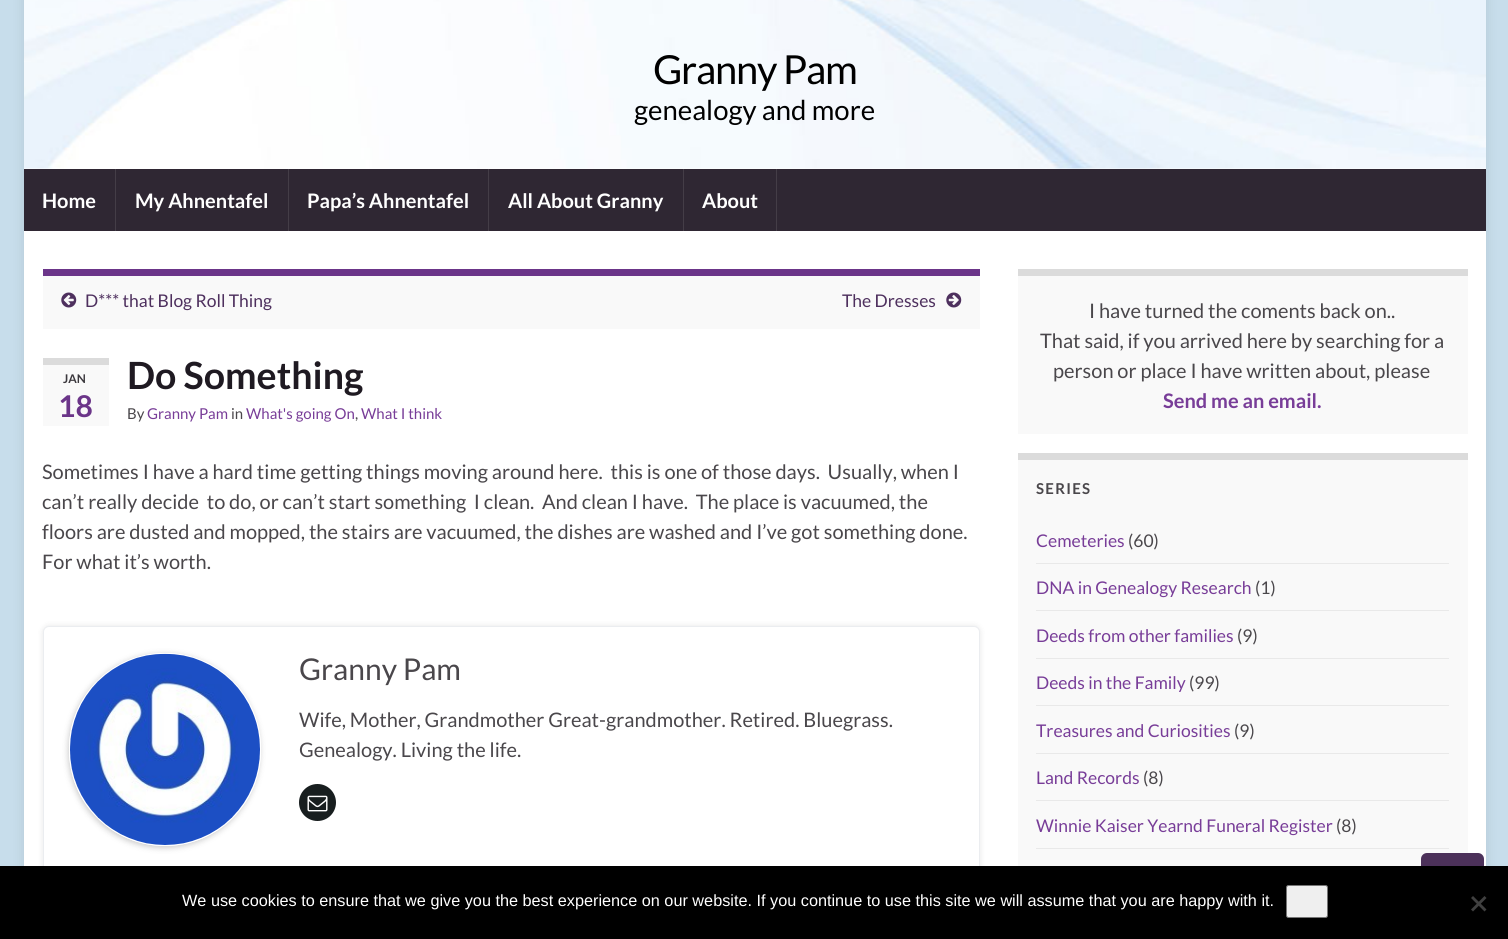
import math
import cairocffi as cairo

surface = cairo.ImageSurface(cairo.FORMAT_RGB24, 1508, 939)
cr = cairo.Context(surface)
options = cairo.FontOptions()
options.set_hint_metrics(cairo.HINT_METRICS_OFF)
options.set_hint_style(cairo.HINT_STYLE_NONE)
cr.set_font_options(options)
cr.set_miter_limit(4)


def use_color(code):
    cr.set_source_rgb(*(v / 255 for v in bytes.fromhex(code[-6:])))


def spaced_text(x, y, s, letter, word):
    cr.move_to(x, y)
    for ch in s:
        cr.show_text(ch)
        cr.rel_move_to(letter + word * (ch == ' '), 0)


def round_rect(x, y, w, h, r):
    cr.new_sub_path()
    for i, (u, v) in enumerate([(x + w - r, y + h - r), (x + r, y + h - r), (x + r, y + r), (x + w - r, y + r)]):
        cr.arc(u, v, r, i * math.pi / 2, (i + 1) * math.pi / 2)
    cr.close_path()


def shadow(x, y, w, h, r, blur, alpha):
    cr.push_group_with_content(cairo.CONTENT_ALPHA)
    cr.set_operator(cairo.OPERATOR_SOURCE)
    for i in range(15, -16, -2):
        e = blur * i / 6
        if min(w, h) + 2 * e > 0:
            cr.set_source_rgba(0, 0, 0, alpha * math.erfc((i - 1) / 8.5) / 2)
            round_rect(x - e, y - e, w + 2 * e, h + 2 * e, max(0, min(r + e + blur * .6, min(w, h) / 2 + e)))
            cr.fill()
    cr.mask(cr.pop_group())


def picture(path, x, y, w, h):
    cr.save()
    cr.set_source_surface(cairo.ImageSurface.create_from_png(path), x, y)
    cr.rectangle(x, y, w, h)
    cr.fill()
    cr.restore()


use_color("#c7ddeb")
cr.paint()
use_color("#000000")
shadow(24, -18, 1462, 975, 0, 6, 0.1)
use_color("#ffffff")
cr.rectangle(24, 168, 1462, 1)
cr.fill()
picture("img1.png", 24, 0, 1462, 169)
use_color("#2f2733")
cr.rectangle(24, 169, 1462, 62)
cr.fill()
cr.select_font_face("Lato")
cr.set_font_size(40)
use_color("#000000")
spaced_text(653, 84, "Granny Pam", -1.25, 0)
cr.set_font_size(27.5)
cr.move_to(634, 120)
cr.show_text("genealogy and more")
use_color("#443d47")
cr.rectangle(115, 169, 1, 62)
cr.fill()
cr.select_font_face("Lato", cairo.FONT_SLANT_NORMAL, cairo.FONT_WEIGHT_BOLD)
cr.set_font_size(20)
use_color("#ffffff")
cr.move_to(42, 208)
cr.show_text("Home")
use_color("#443d47")
cr.rectangle(288, 169, 1, 62)
cr.fill()
use_color("#ffffff")
cr.move_to(135, 208)
cr.show_text("My Ahnentafel")
use_color("#443d47")
cr.rectangle(488, 169, 1, 62)
cr.fill()
use_color("#ffffff")
cr.move_to(307, 208)
cr.show_text("Papa’s Ahnentafel")
use_color("#443d47")
cr.rectangle(683, 169, 1, 62)
cr.fill()
use_color("#ffffff")
cr.move_to(508, 208)
cr.show_text("All About Granny")
use_color("#443d47")
cr.rectangle(776, 169, 1, 62)
cr.fill()
use_color("#ffffff")
cr.move_to(702, 208)
cr.show_text("About")
cr.rectangle(24, 231, 1462, 635)
cr.fill()
use_color("#f9f9f9")
cr.rectangle(43, 276, 937, 53)
cr.fill()
use_color("#6b3589")
cr.rectangle(43, 269, 937, 7)
cr.fill()
picture("img2.png", 61, 292, 16, 16)
cr.select_font_face("Lato")
cr.set_font_size(17.5)
use_color("#4e305e")
cr.move_to(85, 307)
cr.show_text("D*** that Blog Roll Thing")
cr.move_to(842, 307)
cr.show_text("The Dresses")
picture("img3.png", 946, 292, 16, 16)
use_color("#f9f9f9")
cr.rectangle(43, 365, 66, 61)
cr.fill()
use_color("#dbdbdb")
cr.rectangle(43, 358, 66, 7)
cr.fill()
cr.select_font_face("Lato", cairo.FONT_SLANT_NORMAL, cairo.FONT_WEIGHT_BOLD)
cr.set_font_size(12)
use_color("#3b383d")
cr.move_to(63, 383)
cr.show_text("JAN")
cr.set_font_size(30)
use_color("#6b3589")
cr.move_to(58, 417)
cr.show_text("18")
cr.set_font_size(37.5)
use_color("#1f1a22")
cr.move_to(127, 389)
cr.show_text("Do Something")
cr.select_font_face("Lato")
cr.set_font_size(15)
use_color("#4a474b")
cr.move_to(127, 419)
cr.show_text("By")
use_color("#783d98")
cr.move_to(147, 419)
cr.show_text("Granny Pam")
use_color("#4a474b")
cr.move_to(231, 419)
cr.show_text("in")
use_color("#783d98")
cr.move_to(246, 419)
cr.show_text("What's going On")
use_color("#4a474b")
cr.move_to(355, 419)
cr.show_text(",")
use_color("#783d98")
cr.move_to(361, 419)
cr.show_text("What I think")
cr.set_font_size(20)
use_color("#4a474b")
cr.move_to(42, 479)
cr.show_text("Sometimes I have a hard time getting things moving around here.  this is one of those days.  Usually, when I")
cr.move_to(42, 509)
cr.show_text("can’t really decide  to do, or can’t start something  I clean.  And clean I have.  The place is vacuumed, the")
cr.move_to(42, 539)
cr.show_text("floors are dusted and mopped, the stairs are vacuumed, the dishes are washed and I’ve got something done.")
cr.move_to(42, 569)
cr.show_text("For what it’s worth.")
use_color("#000000")
shadow(43, 626, 937, 247, 6, 3, 0.1)
use_color("#ffffff")
round_rect(43.5, 626.5, 936, 246, 5.5)
cr.fill_preserve()
use_color("#ebedf0")
cr.set_line_width(1)
cr.stroke()
cr.save()
cr.set_fill_rule(cairo.FILL_RULE_EVEN_ODD)
cr.new_path()
cr.move_to(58, 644)
cr.line_to(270, 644)
cr.line_to(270, 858)
cr.line_to(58, 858)
cr.close_path()
cr.move_to(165, 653)
cr.curve_to(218, 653, 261, 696, 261, 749)
cr.line_to(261, 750)
cr.curve_to(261, 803, 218, 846, 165, 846)
cr.curve_to(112, 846, 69, 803, 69, 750)
cr.line_to(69, 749)
cr.curve_to(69, 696, 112, 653, 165, 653)
cr.close_path()
cr.clip()
use_color("#000000")
shadow(68, 654, 192, 194, 96, 3, 0.2)
cr.restore()
round_rect(69.5, 653.5, 191, 192, 95.5)
use_color("#ffffff")
cr.stroke()
picture("img4.png", 70, 653, 190, 192)
cr.set_font_size(30)
use_color("#4a474b")
cr.move_to(299, 680)
cr.show_text("Granny Pam")
cr.set_font_size(20)
cr.move_to(299, 727)
cr.show_text("Wife, Mother, Grandmother Great-grandmother. Retired. Bluegrass.")
cr.move_to(299, 757)
cr.show_text("Genealogy. Living the life.")
use_color("#181e1f")
cr.new_path()
cr.arc(317.5, 802.5, 18.5, 0, 2 * math.pi)
cr.fill()
picture("img5.png", 307, 795, 21, 17)
use_color("#f9f9f9")
cr.rectangle(1018, 276, 450, 158)
cr.fill()
use_color("#dbdbdb")
cr.rectangle(1018, 269, 450, 7)
cr.fill()
use_color("#4a474b")
cr.move_to(1089, 318)
cr.show_text("I have turned the coments back on..")
cr.move_to(1040, 348)
cr.show_text("That said, if you arrived here by searching for a")
cr.move_to(1053, 378)
cr.show_text("person or place I have written about, please")
cr.select_font_face("Lato", cairo.FONT_SLANT_NORMAL, cairo.FONT_WEIGHT_BOLD)
use_color("#783d98")
cr.move_to(1163, 408)
cr.show_text("Send me an email.")
use_color("#f9f9f9")
cr.rectangle(1018, 460, 450, 406)
cr.fill()
use_color("#dbdbdb")
cr.rectangle(1018, 453, 450, 7)
cr.fill()
cr.set_font_size(15)
use_color("#4a474b")
spaced_text(1036, 494, "SERIES", 1.25, 0)
use_color("#e9e9e9")
cr.rectangle(1036, 563, 413, 1)
cr.fill()
cr.select_font_face("Lato")
cr.set_font_size(17.5)
use_color("#783d98")
cr.move_to(1036, 547)
cr.show_text("Cemeteries")
use_color("#4a474b")
cr.move_to(1128, 547)
cr.show_text("(60)")
use_color("#e9e9e9")
cr.rectangle(1036, 610, 413, 1)
cr.fill()
use_color("#783d98")
cr.move_to(1036, 594)
cr.show_text("DNA in Genealogy Research")
use_color("#4a474b")
cr.move_to(1255, 594)
cr.show_text("(1)")
use_color("#e9e9e9")
cr.rectangle(1036, 658, 413, 1)
cr.fill()
use_color("#783d98")
cr.move_to(1036, 642)
cr.show_text("Deeds from other families")
use_color("#4a474b")
cr.move_to(1237, 642)
cr.show_text("(9)")
use_color("#e9e9e9")
cr.rectangle(1036, 705, 413, 1)
cr.fill()
use_color("#783d98")
cr.move_to(1036, 689)
cr.show_text("Deeds in the Family")
use_color("#4a474b")
cr.move_to(1189, 689)
cr.show_text("(99)")
use_color("#e9e9e9")
cr.rectangle(1036, 753, 413, 1)
cr.fill()
use_color("#783d98")
cr.move_to(1036, 737)
cr.show_text("Treasures and Curiosities")
use_color("#4a474b")
cr.move_to(1234, 737)
cr.show_text("(9)")
use_color("#e9e9e9")
cr.rectangle(1036, 800, 413, 1)
cr.fill()
use_color("#783d98")
cr.move_to(1036, 784)
cr.show_text("Land Records")
use_color("#4a474b")
cr.move_to(1143, 784)
cr.show_text("(8)")
use_color("#e9e9e9")
cr.rectangle(1036, 848, 413, 1)
cr.fill()
use_color("#783d98")
cr.move_to(1036, 832)
cr.show_text("Winnie Kaiser Yearnd Funeral Register")
use_color("#4a474b")
cr.move_to(1336, 832)
cr.show_text("(8)")
use_color("#ffffff")
shadow(1421, 853, 63, 62, 6, 1, 0.3)
use_color("#4c315a")
round_rect(1421, 853, 63, 62, 6)
cr.fill()
use_color("#000000")
cr.rectangle(0, 866, 1508, 73)
cr.fill()
cr.select_font_face("Liberation Sans")
cr.set_font_size(16.25)
use_color("#ffffff")
cr.move_to(182, 906)
cr.show_text("We use cookies to ensure that we give you the best experience on our website. If you continue to use this site we will assume that you are happy with it.")
use_color("#efefef")
round_rect(1286.5, 885.5, 41, 32, 2)
cr.fill_preserve()
use_color("#767676")
cr.stroke()
use_color("#404040")
cr.new_path()
cr.move_to(1484.5, 896)
cr.line_to(1486.5, 898)
cr.line_to(1473, 911.5)
cr.line_to(1471, 909.5)
cr.close_path()
cr.fill()
cr.new_path()
cr.move_to(1471, 898)
cr.line_to(1473, 896)
cr.line_to(1486.5, 909.5)
cr.line_to(1484.5, 911.5)
cr.close_path()
cr.fill()
surface.write_to_png("result.png")
